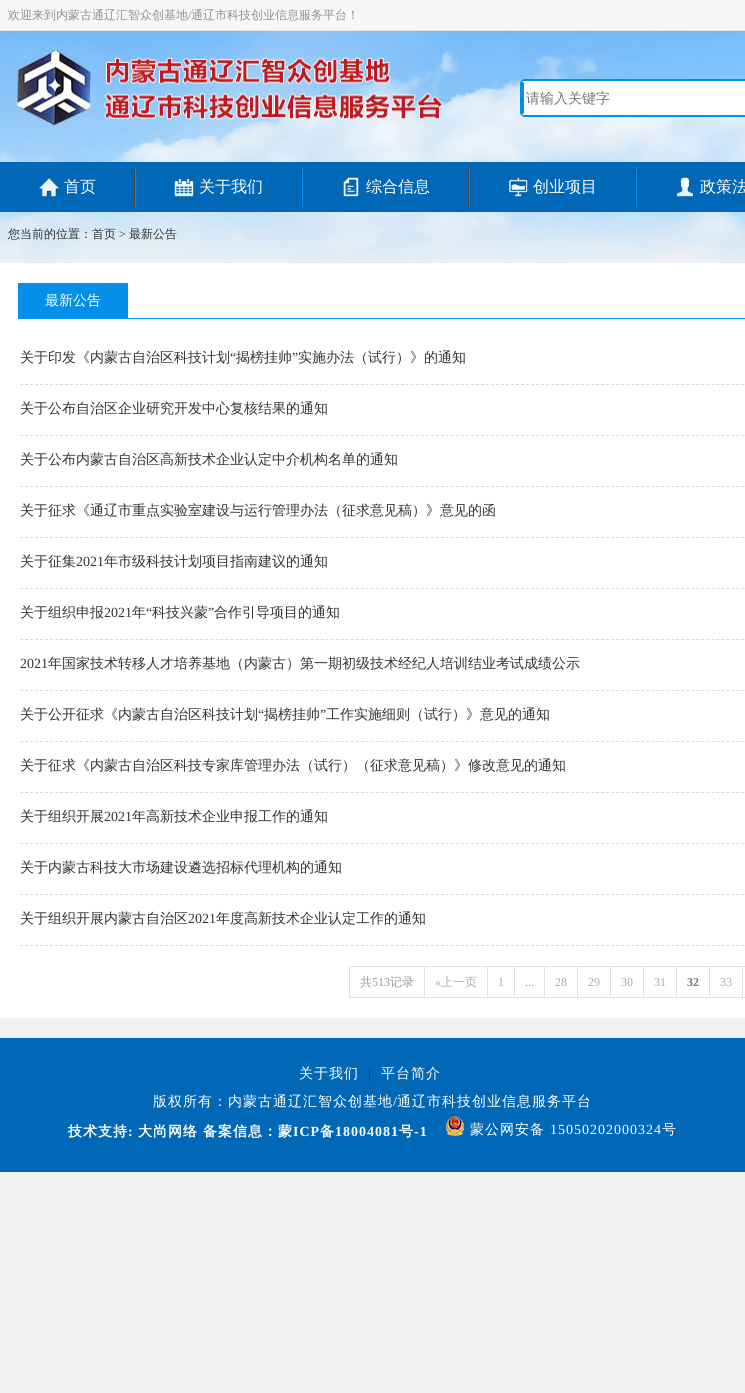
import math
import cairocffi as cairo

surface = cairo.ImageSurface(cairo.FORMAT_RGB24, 745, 1393)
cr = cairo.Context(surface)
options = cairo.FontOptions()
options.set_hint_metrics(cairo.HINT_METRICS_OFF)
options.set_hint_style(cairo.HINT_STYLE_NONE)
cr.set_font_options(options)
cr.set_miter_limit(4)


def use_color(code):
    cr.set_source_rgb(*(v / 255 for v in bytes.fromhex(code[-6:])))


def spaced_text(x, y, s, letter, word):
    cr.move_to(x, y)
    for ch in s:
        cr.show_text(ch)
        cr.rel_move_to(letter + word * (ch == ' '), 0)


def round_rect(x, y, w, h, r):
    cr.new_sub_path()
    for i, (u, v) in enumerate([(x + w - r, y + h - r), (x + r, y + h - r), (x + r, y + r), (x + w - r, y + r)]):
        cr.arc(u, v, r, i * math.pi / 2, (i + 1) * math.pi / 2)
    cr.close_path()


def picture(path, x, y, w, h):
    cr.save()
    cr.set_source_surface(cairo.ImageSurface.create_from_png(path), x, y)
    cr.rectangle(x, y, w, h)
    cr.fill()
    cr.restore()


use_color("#f2f2f2")
cr.paint()
picture("img1.png", 0, 31, 745, 232)
use_color("#f7f7f7")
cr.rectangle(0, 0, 745, 30)
cr.fill()
use_color("#e4e4e4")
cr.rectangle(0, 30, 745, 1)
cr.fill()
cr.select_font_face("WenQuanYi Zen Hei Medium")
cr.set_font_size(12)
use_color("#909090")
cr.move_to(8, 19)
cr.show_text("欢迎来到内蒙古通辽汇智众创基地")
cr.select_font_face("Liberation Serif")
cr.move_to(188, 19)
cr.show_text("/")
cr.select_font_face("WenQuanYi Zen Hei Medium")
cr.move_to(191, 19)
cr.show_text("通辽市科技创业信息服务平台！")
picture("img2.png", 17, 50, 426, 76)
round_rect(521, 80, 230, 36, 4)
use_color("#048fe9")
cr.stroke()
use_color("#ffffff")
cr.rectangle(522, 81, 223, 34)
cr.fill()
use_color("#048fe9")
cr.new_path()
cr.move_to(522, 115)
cr.line_to(522, 81)
cr.line_to(524, 83)
cr.line_to(524, 113)
cr.close_path()
cr.fill()
cr.set_font_size(14)
use_color("#757575")
cr.move_to(526, 103)
cr.show_text("请输入关键字")
use_color("#0068b7")
cr.rectangle(0, 162, 745, 50)
cr.fill()
use_color("#444444")
cr.rectangle(134, 167, 1, 40)
cr.fill()
picture("img3.png", 39, 178, 20, 19)
cr.set_font_size(16)
use_color("#ffffff")
cr.move_to(64, 192)
cr.show_text("首页")
use_color("#444444")
cr.rectangle(301, 167, 1, 40)
cr.fill()
use_color("#0c8ae9")
cr.rectangle(135, 167, 1, 40)
cr.fill()
picture("img4.png", 174, 179, 20, 18)
use_color("#ffffff")
cr.move_to(199, 192)
cr.show_text("关于我们")
use_color("#444444")
cr.rectangle(468, 167, 1, 40)
cr.fill()
use_color("#0c8ae9")
cr.rectangle(302, 167, 1, 40)
cr.fill()
picture("img5.png", 343, 177, 17, 20)
use_color("#ffffff")
cr.move_to(366, 192)
cr.show_text("综合信息")
use_color("#444444")
cr.rectangle(635, 167, 1, 40)
cr.fill()
use_color("#0c8ae9")
cr.rectangle(469, 167, 1, 40)
cr.fill()
picture("img6.png", 509, 177, 19, 20)
use_color("#ffffff")
cr.move_to(533, 192)
cr.show_text("创业项目")
use_color("#0c8ae9")
cr.rectangle(636, 167, 1, 40)
cr.fill()
picture("img7.png", 677, 177, 17, 20)
use_color("#ffffff")
cr.move_to(700, 192)
cr.show_text("政策法")
cr.set_font_size(12)
use_color("#333333")
cr.move_to(8, 238)
cr.show_text("您当前的位置：首页")
cr.select_font_face("Liberation Serif")
cr.move_to(119, 238)
cr.show_text(">")
cr.select_font_face("WenQuanYi Zen Hei Medium")
cr.move_to(129, 238)
cr.show_text("最新公告")
use_color("#ffffff")
cr.rectangle(0, 263, 745, 755)
cr.fill()
use_color("#048fe9")
cr.rectangle(18, 318, 727, 1)
cr.fill()
cr.rectangle(18, 283, 110, 35)
cr.fill()
cr.set_font_size(14)
use_color("#ffffff")
cr.move_to(45, 305)
cr.show_text("最新公告")
cr.new_path()
cr.move_to(20, 384.5)
cr.line_to(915, 384.5)
use_color("#dbdbdb")
cr.set_line_width(1)
cr.set_dash([3, 2.01])
cr.stroke()
use_color("#333333")
cr.move_to(20, 362)
cr.show_text("关于印发《内蒙古自治区科技计划")
cr.select_font_face("Liberation Serif")
cr.move_to(230, 362)
cr.show_text("“")
cr.select_font_face("WenQuanYi Zen Hei Medium")
cr.move_to(236, 362)
cr.show_text("揭榜挂帅")
cr.select_font_face("Liberation Serif")
cr.move_to(292, 362)
cr.show_text("”")
cr.select_font_face("WenQuanYi Zen Hei Medium")
cr.move_to(298, 362)
cr.show_text("实施办法（试行）》的通知")
cr.new_path()
cr.move_to(20, 435.5)
cr.line_to(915, 435.5)
use_color("#dbdbdb")
cr.stroke()
use_color("#333333")
cr.move_to(20, 413)
cr.show_text("关于公布自治区企业研究开发中心复核结果的通知")
cr.new_path()
cr.move_to(20, 486.5)
cr.line_to(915, 486.5)
use_color("#dbdbdb")
cr.stroke()
use_color("#333333")
cr.move_to(20, 464)
cr.show_text("关于公布内蒙古自治区高新技术企业认定中介机构名单的通知")
cr.new_path()
cr.move_to(20, 537.5)
cr.line_to(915, 537.5)
use_color("#dbdbdb")
cr.stroke()
use_color("#333333")
cr.move_to(20, 515)
cr.show_text("关于征求《通辽市重点实验室建设与运行管理办法（征求意见稿）》意见的函")
cr.new_path()
cr.move_to(20, 588.5)
cr.line_to(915, 588.5)
use_color("#dbdbdb")
cr.stroke()
use_color("#333333")
cr.move_to(20, 566)
cr.show_text("关于征集")
cr.select_font_face("Liberation Serif")
cr.move_to(76, 566)
cr.show_text("2021")
cr.select_font_face("WenQuanYi Zen Hei Medium")
cr.move_to(104, 566)
cr.show_text("年市级科技计划项目指南建议的通知")
cr.new_path()
cr.move_to(20, 639.5)
cr.line_to(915, 639.5)
use_color("#dbdbdb")
cr.stroke()
use_color("#333333")
cr.move_to(20, 617)
cr.show_text("关于组织申报")
cr.select_font_face("Liberation Serif")
cr.move_to(104, 617)
cr.show_text("2021")
cr.select_font_face("WenQuanYi Zen Hei Medium")
cr.move_to(132, 617)
cr.show_text("年")
cr.select_font_face("Liberation Serif")
cr.move_to(146, 617)
cr.show_text("“")
cr.select_font_face("WenQuanYi Zen Hei Medium")
cr.move_to(152, 617)
cr.show_text("科技兴蒙")
cr.select_font_face("Liberation Serif")
cr.move_to(208, 617)
cr.show_text("”")
cr.select_font_face("WenQuanYi Zen Hei Medium")
cr.move_to(214, 617)
cr.show_text("合作引导项目的通知")
cr.new_path()
cr.move_to(20, 690.5)
cr.line_to(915, 690.5)
use_color("#dbdbdb")
cr.stroke()
cr.select_font_face("Liberation Serif")
use_color("#333333")
cr.move_to(20, 668)
cr.show_text("2021")
cr.select_font_face("WenQuanYi Zen Hei Medium")
cr.move_to(48, 668)
cr.show_text("年国家技术转移人才培养基地（内蒙古）第一期初级技术经纪人培训结业考试成绩公示")
cr.new_path()
cr.move_to(20, 741.5)
cr.line_to(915, 741.5)
use_color("#dbdbdb")
cr.stroke()
use_color("#333333")
cr.move_to(20, 719)
cr.show_text("关于公开征求《内蒙古自治区科技计划")
cr.select_font_face("Liberation Serif")
cr.move_to(258, 719)
cr.show_text("“")
cr.select_font_face("WenQuanYi Zen Hei Medium")
cr.move_to(264, 719)
cr.show_text("揭榜挂帅")
cr.select_font_face("Liberation Serif")
cr.move_to(320, 719)
cr.show_text("”")
cr.select_font_face("WenQuanYi Zen Hei Medium")
cr.move_to(326, 719)
cr.show_text("工作实施细则（试行）》意见的通知")
cr.new_path()
cr.move_to(20, 792.5)
cr.line_to(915, 792.5)
use_color("#dbdbdb")
cr.stroke()
use_color("#333333")
cr.move_to(20, 770)
cr.show_text("关于征求《内蒙古自治区科技专家库管理办法（试行）（征求意见稿）》修改意见的通知")
cr.new_path()
cr.move_to(20, 843.5)
cr.line_to(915, 843.5)
use_color("#dbdbdb")
cr.stroke()
use_color("#333333")
cr.move_to(20, 821)
cr.show_text("关于组织开展")
cr.select_font_face("Liberation Serif")
cr.move_to(104, 821)
cr.show_text("2021")
cr.select_font_face("WenQuanYi Zen Hei Medium")
cr.move_to(132, 821)
cr.show_text("年高新技术企业申报工作的通知")
cr.new_path()
cr.move_to(20, 894.5)
cr.line_to(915, 894.5)
use_color("#dbdbdb")
cr.stroke()
use_color("#333333")
cr.move_to(20, 872)
cr.show_text("关于内蒙古科技大市场建设遴选招标代理机构的通知")
cr.new_path()
cr.move_to(20, 945.5)
cr.line_to(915, 945.5)
use_color("#dbdbdb")
cr.stroke()
use_color("#333333")
cr.move_to(20, 923)
cr.show_text("关于组织开展内蒙古自治区")
cr.select_font_face("Liberation Serif")
cr.move_to(188, 923)
cr.show_text("2021")
cr.select_font_face("WenQuanYi Zen Hei Medium")
cr.move_to(216, 923)
cr.show_text("年度高新技术企业认定工作的通知")
use_color("#dedfde")
cr.rectangle(349, 966, 396, 1)
cr.fill()
cr.rectangle(349, 997, 396, 1)
cr.fill()
cr.rectangle(349, 966, 1, 32)
cr.fill()
cr.set_font_size(12)
use_color("#999999")
cr.move_to(360, 986)
cr.show_text("共")
cr.select_font_face("Liberation Serif")
cr.move_to(372, 986)
cr.show_text("513")
cr.select_font_face("WenQuanYi Zen Hei Medium")
cr.move_to(390, 986)
cr.show_text("记录")
use_color("#dedfde")
cr.rectangle(424, 966, 1, 32)
cr.fill()
cr.select_font_face("Liberation Serif")
use_color("#adaaad")
cr.move_to(435, 986)
cr.show_text("«")
cr.select_font_face("WenQuanYi Zen Hei Medium")
cr.move_to(441, 986)
cr.show_text("上一页")
use_color("#dedfde")
cr.rectangle(487, 966, 1, 32)
cr.fill()
cr.select_font_face("Liberation Serif")
use_color("#adaaad")
cr.move_to(498, 986)
cr.show_text("1")
use_color("#dedfde")
cr.rectangle(514, 966, 1, 32)
cr.fill()
use_color("#999999")
cr.move_to(525, 986)
cr.show_text("...")
use_color("#dedfde")
cr.rectangle(544, 966, 1, 32)
cr.fill()
use_color("#adaaad")
cr.move_to(555, 986)
cr.show_text("28")
use_color("#dedfde")
cr.rectangle(577, 966, 1, 32)
cr.fill()
use_color("#adaaad")
cr.move_to(588, 986)
cr.show_text("29")
use_color("#dedfde")
cr.rectangle(610, 966, 1, 32)
cr.fill()
use_color("#adaaad")
cr.move_to(621, 986)
cr.show_text("30")
use_color("#dedfde")
cr.rectangle(643, 966, 1, 32)
cr.fill()
use_color("#adaaad")
cr.move_to(654, 986)
cr.show_text("31")
use_color("#dedfde")
cr.rectangle(676, 966, 1, 32)
cr.fill()
cr.select_font_face("Liberation Serif", cairo.FONT_SLANT_NORMAL, cairo.FONT_WEIGHT_BOLD)
use_color("#757575")
cr.move_to(687, 986)
cr.show_text("32")
use_color("#dedfde")
cr.rectangle(709, 966, 1, 32)
cr.fill()
cr.select_font_face("Liberation Serif")
use_color("#adaaad")
cr.move_to(720, 986)
cr.show_text("33")
use_color("#dedfde")
cr.rectangle(742, 966, 1, 32)
cr.fill()
use_color("#0068b7")
cr.rectangle(0, 1038, 745, 134)
cr.fill()
cr.select_font_face("WenQuanYi Zen Hei Medium")
cr.set_font_size(14)
use_color("#ffffff")
spaced_text(299, 1078, "关于我们", 1, 0)
cr.select_font_face("Liberation Serif")
use_color("#333333")
spaced_text(368, 1078, "|", 1, 0)
cr.select_font_face("WenQuanYi Zen Hei Medium")
use_color("#ffffff")
spaced_text(381, 1078, "平台简介", 1, 0)
spaced_text(153, 1106, "版权所有：内蒙古通辽汇智众创基地", 1, 0)
cr.select_font_face("Liberation Serif")
spaced_text(393, 1106, "/", 1, 0)
cr.select_font_face("WenQuanYi Zen Hei Medium")
spaced_text(397, 1106, "通辽市科技创业信息服务平台", 1, 0)
cr.select_font_face("WenQuanYi Zen Hei", cairo.FONT_SLANT_NORMAL, cairo.FONT_WEIGHT_BOLD)
spaced_text(68, 1136, "技术支持", 1, 0)
cr.select_font_face("Liberation Serif", cairo.FONT_SLANT_NORMAL, cairo.FONT_WEIGHT_BOLD)
spaced_text(128, 1136, ":", 1, 0)
cr.select_font_face("WenQuanYi Zen Hei", cairo.FONT_SLANT_NORMAL, cairo.FONT_WEIGHT_BOLD)
spaced_text(138, 1136, "大尚网络", 1, 0)
spaced_text(203, 1136, "备案信息：蒙", 1, 0)
cr.select_font_face("Liberation Serif", cairo.FONT_SLANT_NORMAL, cairo.FONT_WEIGHT_BOLD)
spaced_text(293, 1136, "ICP", 1, 0)
cr.select_font_face("WenQuanYi Zen Hei", cairo.FONT_SLANT_NORMAL, cairo.FONT_WEIGHT_BOLD)
spaced_text(320, 1136, "备", 1, 0)
cr.select_font_face("Liberation Serif", cairo.FONT_SLANT_NORMAL, cairo.FONT_WEIGHT_BOLD)
spaced_text(335, 1136, "18004081", 1, 0)
cr.select_font_face("WenQuanYi Zen Hei", cairo.FONT_SLANT_NORMAL, cairo.FONT_WEIGHT_BOLD)
spaced_text(399, 1136, "号", 1, 0)
cr.select_font_face("Liberation Serif", cairo.FONT_SLANT_NORMAL, cairo.FONT_WEIGHT_BOLD)
spaced_text(414, 1136, "-1", 1, 0)
picture("img8.png", 446, 1116, 18, 20)
cr.select_font_face("WenQuanYi Zen Hei Medium")
spaced_text(470, 1134, "蒙公网安备", 1, 0)
cr.select_font_face("Liberation Serif")
spaced_text(550, 1134, "15050202000324", 1, 0)
cr.select_font_face("WenQuanYi Zen Hei Medium")
spaced_text(662, 1134, "号", 1, 0)
surface.write_to_png("result.png")
